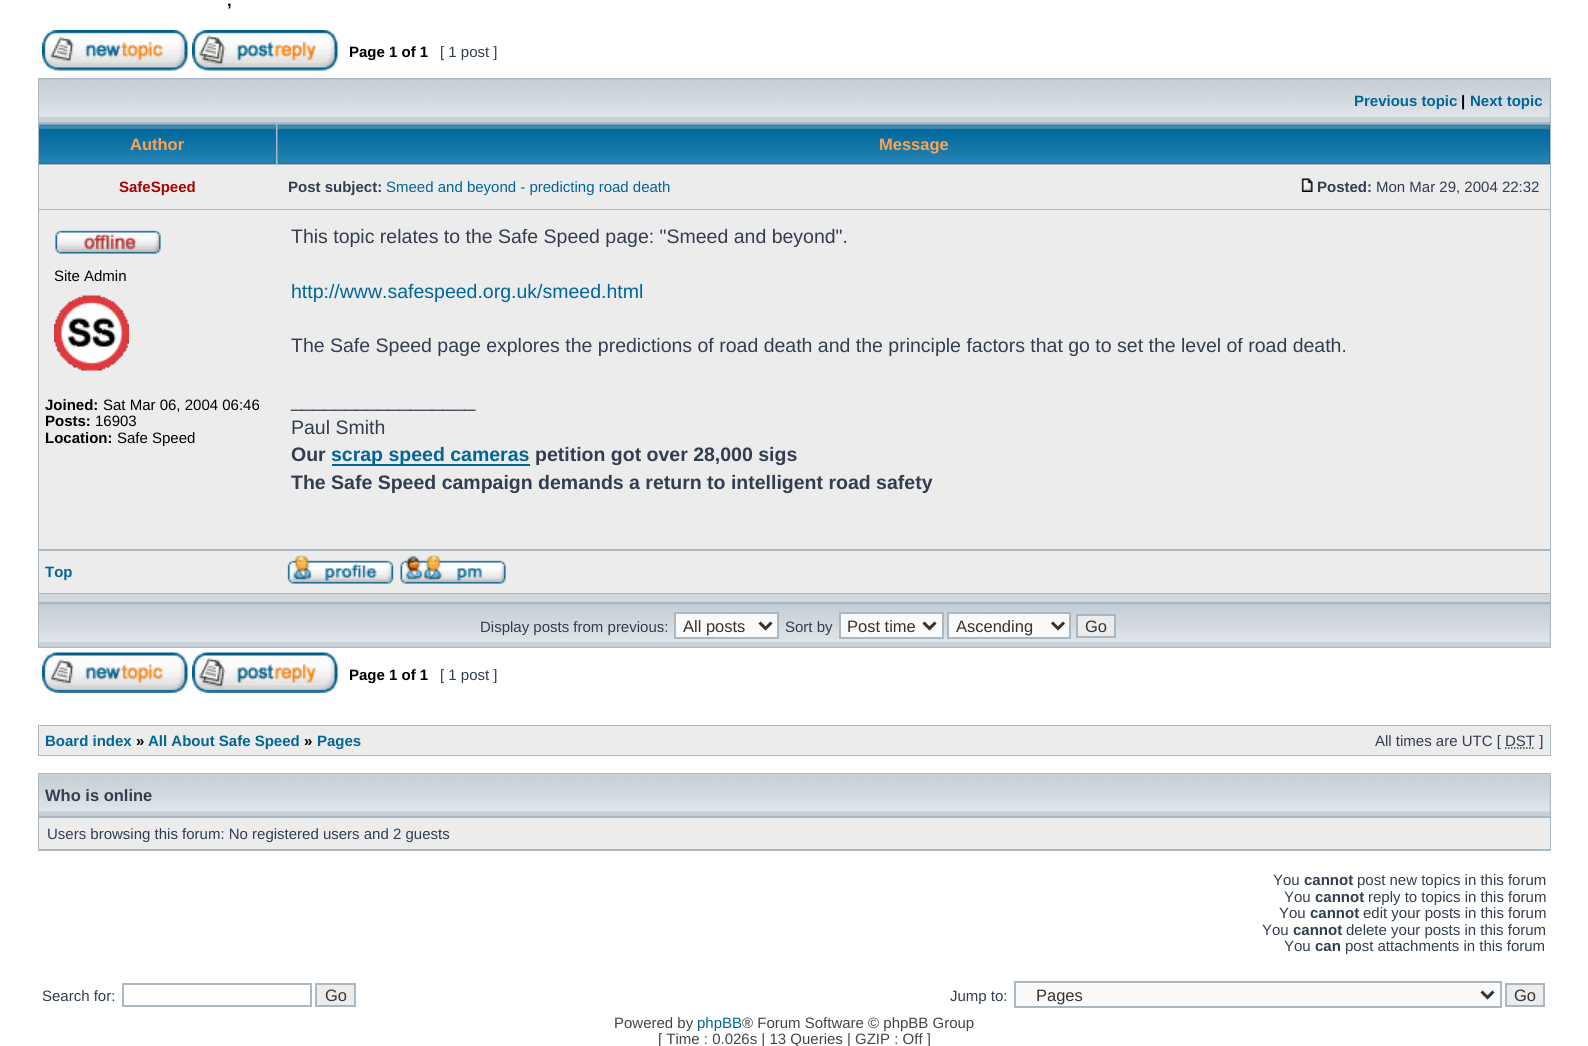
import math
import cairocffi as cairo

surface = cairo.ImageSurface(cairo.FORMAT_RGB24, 1588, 1046)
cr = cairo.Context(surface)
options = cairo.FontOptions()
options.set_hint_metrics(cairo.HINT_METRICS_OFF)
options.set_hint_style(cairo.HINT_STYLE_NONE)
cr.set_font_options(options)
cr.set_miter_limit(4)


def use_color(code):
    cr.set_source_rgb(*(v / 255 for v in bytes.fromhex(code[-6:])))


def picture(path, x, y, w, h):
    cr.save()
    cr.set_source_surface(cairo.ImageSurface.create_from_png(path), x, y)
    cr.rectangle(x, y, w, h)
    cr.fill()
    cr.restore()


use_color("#ffffff")
cr.paint()
cr.select_font_face("Liberation Sans", cairo.FONT_SLANT_NORMAL, cairo.FONT_WEIGHT_BOLD)
cr.set_font_size(16.5)
use_color("#000000")
cr.move_to(227, 6)
cr.show_text(",")
picture("img1.png", 42, 30, 146, 41)
picture("img2.png", 192, 30, 146, 41)
cr.set_font_size(15)
cr.move_to(349, 57)
cr.show_text("Page 1 of 1")
cr.select_font_face("Liberation Sans")
use_color("#323d4f")
cr.move_to(440, 57)
cr.show_text("[ 1 post ]")
use_color("#a9b8c2")
cr.rectangle(38, 78, 1513, 570)
cr.fill()
use_color("#c7d0d7")
cr.rectangle(39, 80, 1511, 42)
cr.fill()
picture("img3.png", 39, 79, 1511, 39)
cr.select_font_face("Liberation Sans", cairo.FONT_SLANT_NORMAL, cairo.FONT_WEIGHT_BOLD)
use_color("#006597")
cr.move_to(1354, 106)
cr.show_text("Previous topic")
use_color("#000000")
cr.move_to(1461, 106)
cr.show_text("|")
use_color("#006597")
cr.move_to(1470, 106)
cr.show_text("Next topic")
use_color("#006699")
cr.rectangle(39, 163, 237, 1)
cr.fill()
picture("img4.png", 39, 124, 237, 40)
cr.set_font_size(16.5)
use_color("#ffa34f")
cr.move_to(130, 150)
cr.show_text("Author")
use_color("#006699")
cr.rectangle(278, 125, 1272, 39)
cr.fill()
picture("img5.png", 277, 124, 1273, 40)
use_color("#ffa34f")
cr.move_to(879, 150)
cr.show_text("Message")
use_color("#ececec")
cr.rectangle(39, 165, 1511, 44)
cr.fill()
cr.set_font_size(15)
use_color("#aa0000")
cr.move_to(119, 192)
cr.show_text("SafeSpeed")
use_color("#323d4f")
cr.move_to(288, 192)
cr.show_text("Post subject:")
cr.select_font_face("Liberation Sans")
use_color("#006597")
cr.move_to(386, 192)
cr.show_text("Smeed and beyond - predicting road death")
picture("img6.png", 1301, 178, 12, 14)
cr.select_font_face("Liberation Sans", cairo.FONT_SLANT_NORMAL, cairo.FONT_WEIGHT_BOLD)
use_color("#323d4f")
cr.move_to(1317, 192)
cr.show_text("Posted:")
cr.select_font_face("Liberation Sans")
cr.move_to(1376, 192)
cr.show_text("Mon Mar 29, 2004 22:32")
use_color("#ececec")
cr.rectangle(39, 210, 1511, 339)
cr.fill()
picture("img7.png", 55, 230, 106, 24)
use_color("#000000")
cr.move_to(54, 281)
cr.show_text("Site Admin")
picture("img8.png", 54, 295, 75, 76)
cr.select_font_face("Liberation Sans", cairo.FONT_SLANT_NORMAL, cairo.FONT_WEIGHT_BOLD)
cr.move_to(45, 410)
cr.show_text("Joined:")
cr.select_font_face("Liberation Sans")
cr.move_to(103, 410)
cr.show_text("Sat Mar 06, 2004 06:46")
cr.select_font_face("Liberation Sans", cairo.FONT_SLANT_NORMAL, cairo.FONT_WEIGHT_BOLD)
cr.move_to(45, 426)
cr.show_text("Posts:")
cr.select_font_face("Liberation Sans")
cr.move_to(95, 426)
cr.show_text("16903")
cr.select_font_face("Liberation Sans", cairo.FONT_SLANT_NORMAL, cairo.FONT_WEIGHT_BOLD)
cr.move_to(45, 443)
cr.show_text("Location:")
cr.select_font_face("Liberation Sans")
cr.move_to(117, 443)
cr.show_text("Safe Speed")
cr.set_font_size(19.5)
use_color("#323d4f")
cr.move_to(291, 243)
cr.show_text("This topic relates to the Safe Speed page: \"Smeed and beyond\".")
use_color("#006597")
cr.move_to(291, 298)
cr.show_text("http://www.safespeed.org.uk/smeed.html")
use_color("#323d4f")
cr.move_to(291, 352)
cr.show_text("The Safe Speed page explores the predictions of road death and the principle factors that go to set the level of road death.")
cr.move_to(291, 407)
cr.show_text("_________________")
cr.move_to(291, 434)
cr.show_text("Paul Smith")
cr.select_font_face("Liberation Sans", cairo.FONT_SLANT_NORMAL, cairo.FONT_WEIGHT_BOLD)
cr.move_to(291, 461)
cr.show_text("Our")
use_color("#006597")
cr.rectangle(332, 464, 198, 2)
cr.fill()
cr.move_to(331, 461)
cr.show_text("scrap speed cameras")
use_color("#323d4f")
cr.move_to(535, 461)
cr.show_text("petition got over 28,000 sigs")
cr.move_to(291, 489)
cr.show_text("The Safe Speed campaign demands a return to intelligent road safety")
use_color("#ececec")
cr.rectangle(39, 551, 1511, 42)
cr.fill()
cr.set_font_size(15)
use_color("#006597")
cr.move_to(45, 577)
cr.show_text("Top")
picture("img9.png", 287, 555, 107, 29)
picture("img10.png", 400, 555, 106, 29)
use_color("#d1d7dc")
cr.rectangle(39, 594, 1511, 8)
cr.fill()
use_color("#c7d0d7")
cr.rectangle(39, 605, 1511, 42)
cr.fill()
picture("img3.png", 39, 604, 1511, 39)
cr.select_font_face("Liberation Sans")
use_color("#323d4f")
cr.move_to(480, 632)
cr.show_text("Display posts from previous:")
use_color("#fafafa")
cr.rectangle(675, 613, 103, 25)
cr.fill_preserve()
use_color("#a9b8c2")
cr.stroke()
cr.new_path()
cr.move_to(759.5, 622.5)
cr.line_to(765.5, 628.5)
cr.line_to(771.5, 622.5)
use_color("#333333")
cr.set_line_width(3)
cr.stroke()
cr.set_font_size(16.5)
cr.move_to(683, 632)
cr.show_text("All posts")
cr.set_font_size(15)
use_color("#323d4f")
cr.move_to(785, 632)
cr.show_text("Sort by")
use_color("#fafafa")
cr.rectangle(840, 613, 103, 25)
cr.fill_preserve()
use_color("#a9b8c2")
cr.set_line_width(2)
cr.stroke()
cr.new_path()
cr.move_to(923.5, 622.5)
cr.line_to(929.5, 628.5)
cr.line_to(935.5, 622.5)
use_color("#333333")
cr.set_line_width(3)
cr.stroke()
cr.set_font_size(16.5)
cr.move_to(847, 632)
cr.show_text("Post time")
use_color("#fafafa")
cr.rectangle(948, 613, 122, 25)
cr.fill_preserve()
use_color("#a9b8c2")
cr.set_line_width(2)
cr.stroke()
cr.new_path()
cr.move_to(1052, 622.5)
cr.line_to(1058, 628.5)
cr.line_to(1064, 622.5)
use_color("#333333")
cr.set_line_width(3)
cr.stroke()
cr.move_to(956, 632)
cr.show_text("Ascending")
use_color("#ececec")
cr.rectangle(1077, 615, 38, 22)
cr.fill_preserve()
use_color("#a9b8c2")
cr.set_line_width(2)
cr.stroke()
use_color("#333333")
cr.move_to(1085, 632)
cr.show_text("Go")
picture("img11.png", 42, 652, 146, 41)
picture("img12.png", 192, 652, 146, 41)
cr.select_font_face("Liberation Sans", cairo.FONT_SLANT_NORMAL, cairo.FONT_WEIGHT_BOLD)
cr.set_font_size(15)
use_color("#000000")
cr.move_to(349, 680)
cr.show_text("Page 1 of 1")
cr.select_font_face("Liberation Sans")
use_color("#323d4f")
cr.move_to(440, 680)
cr.show_text("[ 1 post ]")
use_color("#a9b8c2")
cr.rectangle(38, 725, 1513, 31)
cr.fill()
use_color("#ececec")
cr.rectangle(39, 726, 1511, 29)
cr.fill()
cr.select_font_face("Liberation Sans", cairo.FONT_SLANT_NORMAL, cairo.FONT_WEIGHT_BOLD)
use_color("#006597")
cr.move_to(45, 746)
cr.show_text("Board index")
use_color("#000000")
cr.move_to(136, 746)
cr.show_text("»")
use_color("#006597")
cr.move_to(148, 746)
cr.show_text("All About Safe Speed")
use_color("#000000")
cr.move_to(304, 746)
cr.show_text("»")
use_color("#006597")
cr.move_to(317, 746)
cr.show_text("Pages")
cr.select_font_face("Liberation Sans")
use_color("#323d4f")
cr.move_to(1375, 746)
cr.show_text("All times are UTC [ DST ]")
cr.new_path()
cr.move_to(1505, 748)
cr.line_to(1535, 748)
cr.set_line_width(1.5)
cr.set_dash([1.5, 1.5])
cr.stroke()
use_color("#a9b8c2")
cr.rectangle(38, 773, 1513, 78)
cr.fill()
use_color("#c7d0d7")
cr.rectangle(39, 774, 1511, 42)
cr.fill()
picture("img13.png", 39, 774, 1511, 38)
cr.select_font_face("Liberation Sans", cairo.FONT_SLANT_NORMAL, cairo.FONT_WEIGHT_BOLD)
cr.set_font_size(16.5)
use_color("#323d4f")
cr.move_to(45, 801)
cr.show_text("Who is online")
use_color("#ececec")
cr.rectangle(39, 818, 1511, 31)
cr.fill()
cr.select_font_face("Liberation Sans")
cr.set_font_size(15)
use_color("#323d4f")
cr.move_to(47, 839)
cr.show_text("Users browsing this forum: No registered users and 2 guests")
cr.move_to(1273, 885)
cr.show_text("You")
cr.select_font_face("Liberation Sans", cairo.FONT_SLANT_NORMAL, cairo.FONT_WEIGHT_BOLD)
cr.move_to(1304, 885)
cr.show_text("cannot")
cr.select_font_face("Liberation Sans")
cr.move_to(1357, 885)
cr.show_text("post new topics in this forum")
cr.move_to(1284, 902)
cr.show_text("You")
cr.select_font_face("Liberation Sans", cairo.FONT_SLANT_NORMAL, cairo.FONT_WEIGHT_BOLD)
cr.move_to(1315, 902)
cr.show_text("cannot")
cr.select_font_face("Liberation Sans")
cr.move_to(1368, 902)
cr.show_text("reply to topics in this forum")
cr.move_to(1279, 918)
cr.show_text("You")
cr.select_font_face("Liberation Sans", cairo.FONT_SLANT_NORMAL, cairo.FONT_WEIGHT_BOLD)
cr.move_to(1310, 918)
cr.show_text("cannot")
cr.select_font_face("Liberation Sans")
cr.move_to(1363, 918)
cr.show_text("edit your posts in this forum")
cr.move_to(1262, 935)
cr.show_text("You")
cr.select_font_face("Liberation Sans", cairo.FONT_SLANT_NORMAL, cairo.FONT_WEIGHT_BOLD)
cr.move_to(1293, 935)
cr.show_text("cannot")
cr.select_font_face("Liberation Sans")
cr.move_to(1346, 935)
cr.show_text("delete your posts in this forum")
cr.move_to(1284, 951)
cr.show_text("You")
cr.select_font_face("Liberation Sans", cairo.FONT_SLANT_NORMAL, cairo.FONT_WEIGHT_BOLD)
cr.move_to(1315, 951)
cr.show_text("can")
cr.select_font_face("Liberation Sans")
cr.move_to(1345, 951)
cr.show_text("post attachments in this forum")
cr.move_to(42, 1001)
cr.show_text("Search for:")
cr.rectangle(123, 984, 188, 22)
use_color("#a9b8c2")
cr.set_line_width(2)
cr.set_dash([])
cr.stroke()
use_color("#ececec")
cr.rectangle(316, 984, 39, 22)
cr.fill_preserve()
use_color("#a9b8c2")
cr.stroke()
cr.set_font_size(16.5)
use_color("#333333")
cr.move_to(325, 1001)
cr.show_text("Go")
cr.set_font_size(15)
use_color("#323d4f")
cr.move_to(950, 1001)
cr.show_text("Jump to:")
use_color("#fafafa")
cr.rectangle(1015, 982, 486, 25)
cr.fill_preserve()
use_color("#a9b8c2")
cr.stroke()
cr.new_path()
cr.move_to(1481.5, 991.5)
cr.line_to(1487.5, 997.5)
cr.line_to(1493.5, 991.5)
use_color("#333333")
cr.set_line_width(3)
cr.stroke()
cr.set_font_size(16.5)
cr.move_to(1036, 1001)
cr.show_text("Pages")
use_color("#ececec")
cr.rectangle(1506, 984, 38, 22)
cr.fill_preserve()
use_color("#a9b8c2")
cr.set_line_width(2)
cr.stroke()
use_color("#333333")
cr.move_to(1514, 1001)
cr.show_text("Go")
cr.set_font_size(15)
use_color("#444444")
cr.move_to(614, 1028)
cr.show_text("Powered by")
use_color("#006597")
cr.move_to(697, 1028)
cr.show_text("phpBB")
use_color("#444444")
cr.move_to(742, 1028)
cr.show_text("® Forum Software © phpBB Group")
cr.move_to(658, 1044)
cr.show_text("[ Time : 0.026s | 13 Queries | GZIP : Off ]")
surface.write_to_png("result.png")
